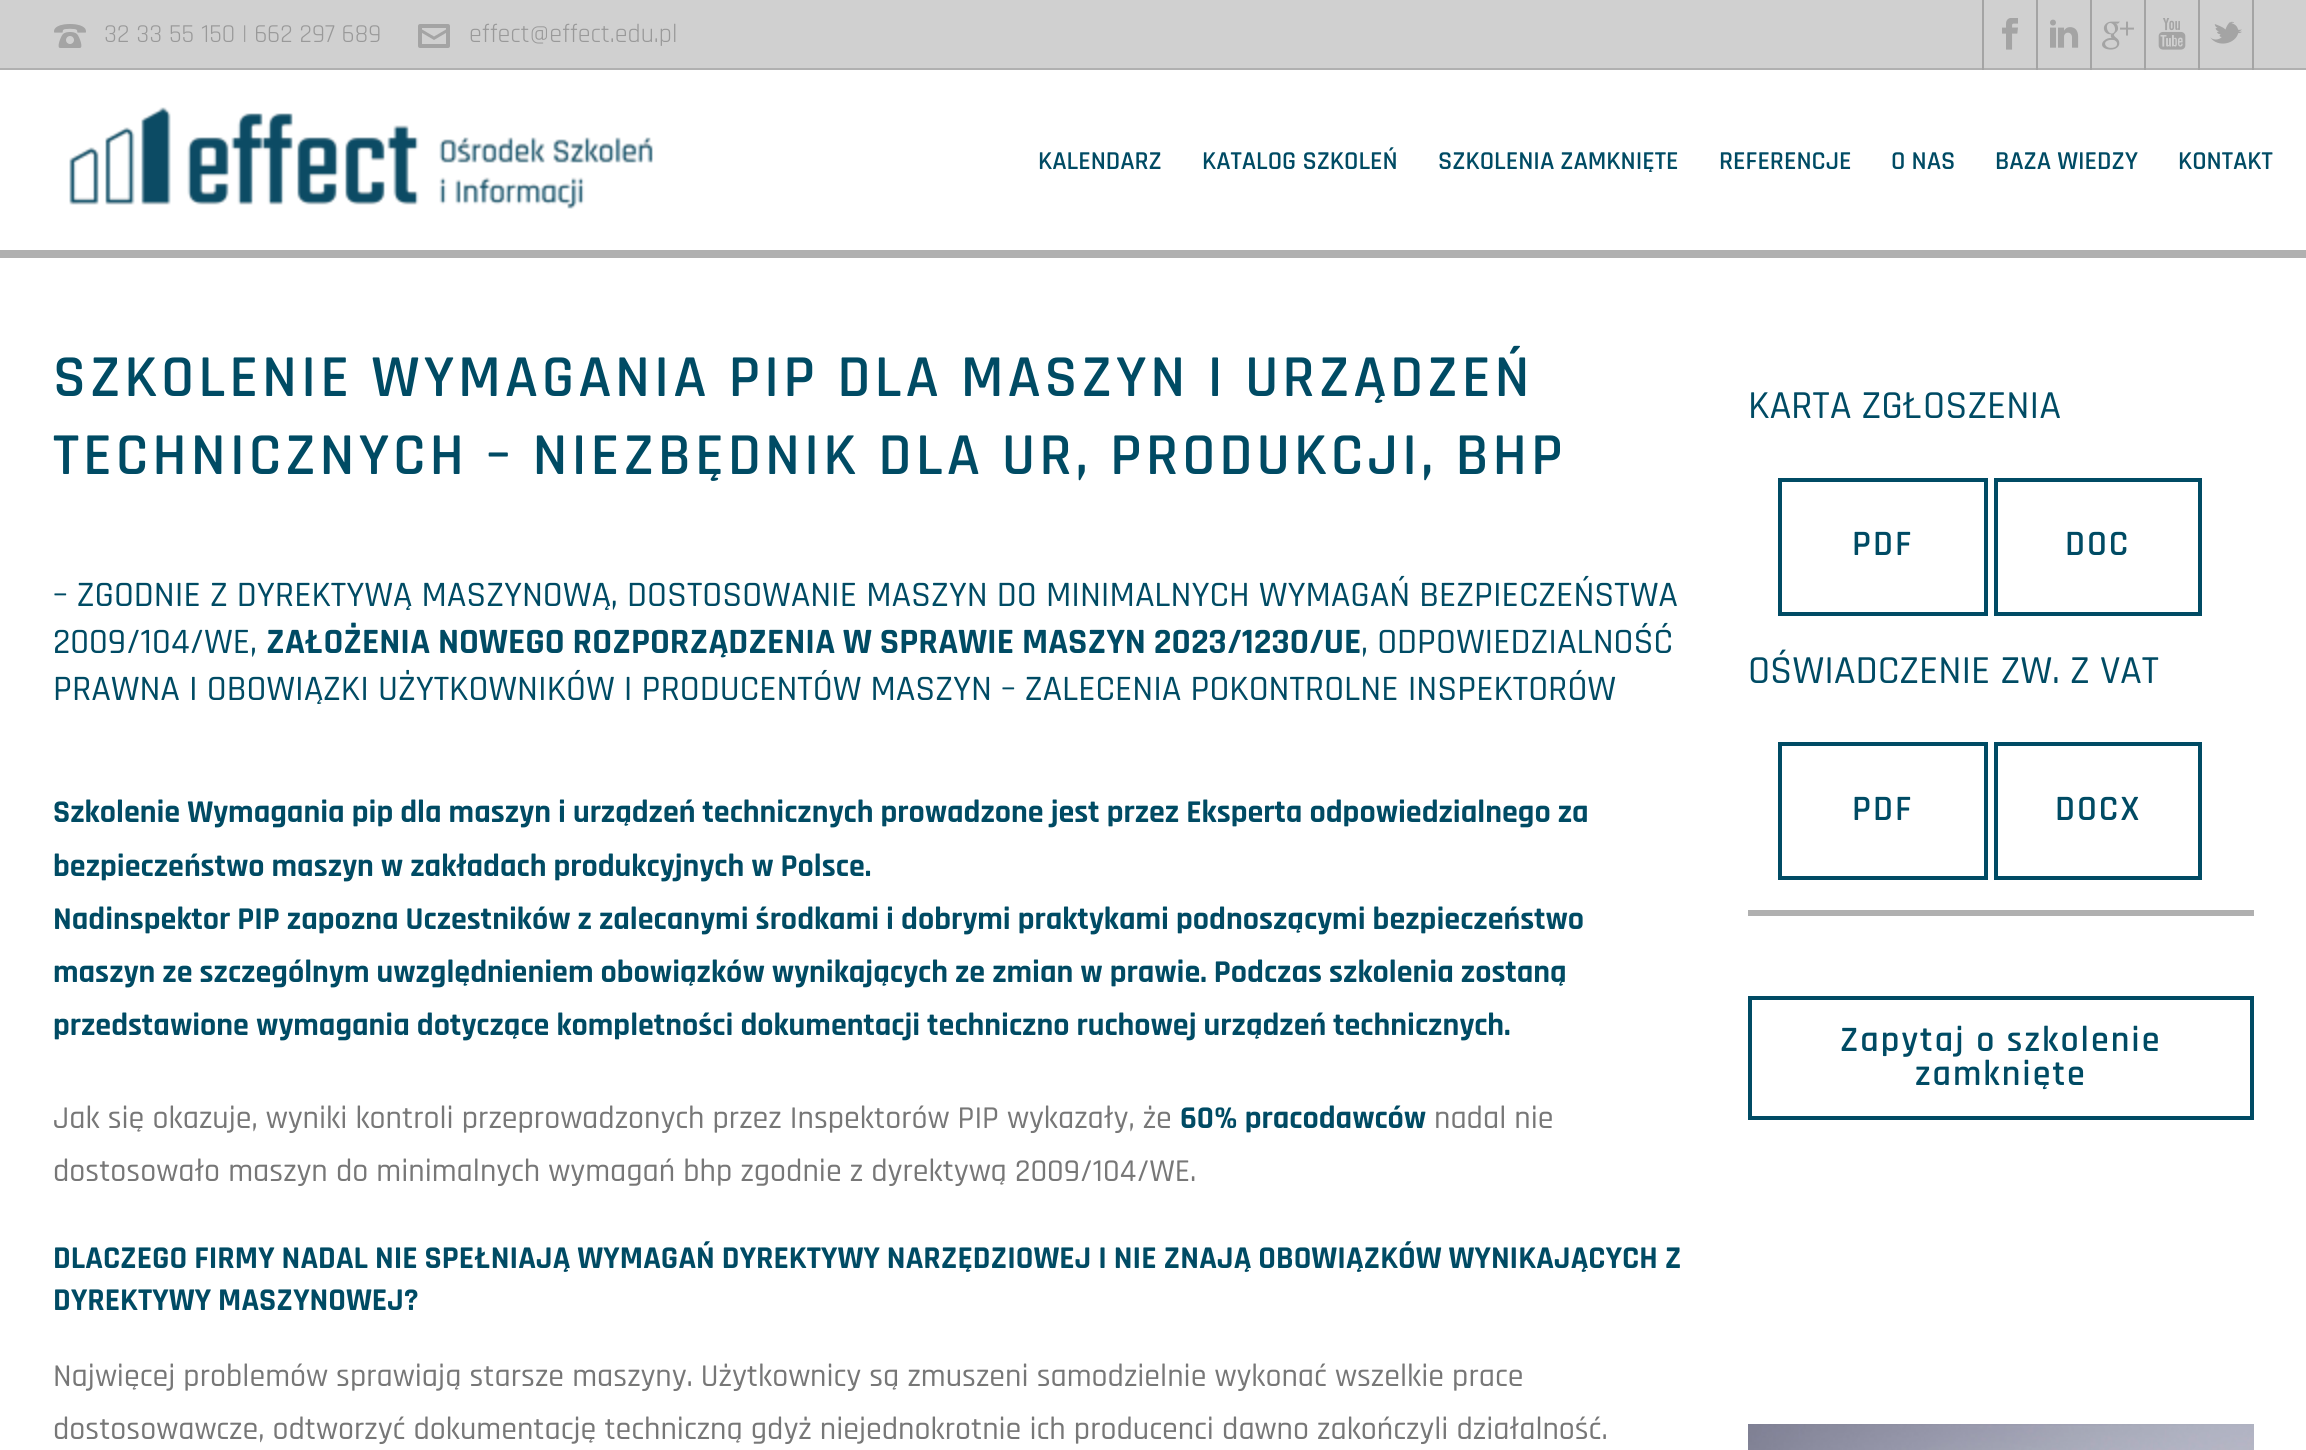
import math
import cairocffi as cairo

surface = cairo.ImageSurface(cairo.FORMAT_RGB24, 2306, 1450)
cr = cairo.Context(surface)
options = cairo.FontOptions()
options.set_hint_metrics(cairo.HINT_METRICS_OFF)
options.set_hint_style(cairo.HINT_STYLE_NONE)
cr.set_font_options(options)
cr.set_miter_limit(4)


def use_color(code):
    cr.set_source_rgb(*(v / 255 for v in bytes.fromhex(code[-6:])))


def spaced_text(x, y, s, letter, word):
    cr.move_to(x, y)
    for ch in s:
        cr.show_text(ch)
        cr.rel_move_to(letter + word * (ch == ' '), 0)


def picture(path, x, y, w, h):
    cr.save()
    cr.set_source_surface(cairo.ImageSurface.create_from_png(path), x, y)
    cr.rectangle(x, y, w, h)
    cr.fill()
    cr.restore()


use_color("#ffffff")
cr.paint()
use_color("#d0d0d0")
cr.rectangle(0, 0, 2306, 68)
cr.fill()
use_color("#b0b0b0")
cr.rectangle(0, 68, 2306, 2)
cr.fill()
picture("img1.png", 54, 24, 32, 24)
cr.select_font_face("Rajdhani")
cr.set_font_size(26)
use_color("#999999")
cr.move_to(104, 42)
cr.show_text("32 33 55 150 | 662 297 689")
picture("img2.png", 418, 24, 32, 24)
cr.move_to(469, 42)
cr.show_text("effect@effect.edu.pl")
use_color("#a4a4a4")
cr.rectangle(1982, 0, 2, 70)
cr.fill()
picture("img3.png", 2002, 18, 16, 32)
cr.rectangle(2036, 0, 2, 70)
cr.fill()
picture("img4.png", 2050, 19, 29, 29)
cr.rectangle(2090, 0, 2, 70)
cr.fill()
picture("img5.png", 2102, 21, 32, 29)
cr.rectangle(2144, 0, 2, 70)
cr.fill()
picture("img6.png", 2158, 18, 28, 32)
cr.rectangle(2252, 0, 2, 70)
cr.fill()
cr.rectangle(2198, 0, 2, 70)
cr.fill()
picture("img7.png", 2210, 21, 32, 23)
picture("img8.png", 69, 107, 584, 102)
cr.select_font_face("Rajdhani SemiBold")
use_color("#004b64")
cr.move_to(1038, 169)
cr.show_text("KALENDARZ")
cr.move_to(1202, 169)
cr.show_text("KATALOG SZKOLEŃ")
cr.move_to(1438, 169)
cr.show_text("SZKOLENIA ZAMKNIĘTE")
cr.move_to(1719, 169)
cr.show_text("REFERENCJE")
cr.move_to(1891, 169)
cr.show_text("O NAS")
cr.move_to(1995, 169)
cr.show_text("BAZA WIEDZY")
cr.move_to(2178, 169)
cr.show_text("KONTAKT")
use_color("#b0b0b0")
cr.rectangle(0, 250, 2306, 8)
cr.fill()
cr.set_font_size(60)
use_color("#004b64")
spaced_text(53, 396, "SZKOLENIE WYMAGANIA PIP DLA MASZYN I URZĄDZEŃ", 4, 0)
spaced_text(53, 474, "TECHNICZNYCH – NIEZBĘDNIK DLA UR, PRODUKCJI, BHP", 4, 0)
cr.select_font_face("Rajdhani Medium")
cr.set_font_size(36)
cr.move_to(53, 606)
cr.show_text("– ZGODNIE Z DYREKTYWĄ MASZYNOWĄ, DOSTOSOWANIE MASZYN DO MINIMALNYCH WYMAGAŃ BEZPIECZEŃSTWA")
cr.move_to(53, 653)
cr.show_text("2009/104/WE,")
cr.select_font_face("Rajdhani", cairo.FONT_SLANT_NORMAL, cairo.FONT_WEIGHT_BOLD)
cr.move_to(266, 653)
cr.show_text("ZAŁOŻENIA NOWEGO ROZPORZĄDZENIA W SPRAWIE MASZYN 2023/1230/UE")
cr.select_font_face("Rajdhani Medium")
cr.move_to(1361, 653)
cr.show_text(", ODPOWIEDZIALNOŚĆ")
cr.move_to(53, 700)
cr.show_text("PRAWNA I OBOWIĄZKI UŻYTKOWNIKÓW I PRODUCENTÓW MASZYN – ZALECENIA POKONTROLNE INSPEKTORÓW")
cr.select_font_face("Rajdhani", cairo.FONT_SLANT_NORMAL, cairo.FONT_WEIGHT_BOLD)
cr.set_font_size(32)
cr.move_to(53, 822)
cr.show_text("Szkolenie Wymagania pip dla maszyn i urządzeń technicznych prowadzone jest przez Eksperta odpowiedzialnego za")
cr.move_to(53, 876)
cr.show_text("bezpieczeństwo maszyn w zakładach produkcyjnych w Polsce.")
cr.move_to(53, 929)
cr.show_text("Nadinspektor PIP zapozna Uczestników z zalecanymi środkami i dobrymi praktykami podnoszącymi bezpieczeństwo")
cr.move_to(53, 982)
cr.show_text("maszyn ze szczególnym uwzględnieniem obowiązków wynikających ze zmian w prawie. Podczas szkolenia zostaną")
cr.move_to(53, 1035)
cr.show_text("przedstawione wymagania dotyczące kompletności dokumentacji techniczno ruchowej urządzeń technicznych.")
cr.select_font_face("Rajdhani Medium")
use_color("#777777")
cr.move_to(53, 1128)
cr.show_text("Jak się okazuje, wyniki kontroli przeprowadzonych przez Inspektorów PIP wykazały, że")
cr.select_font_face("Rajdhani", cairo.FONT_SLANT_NORMAL, cairo.FONT_WEIGHT_BOLD)
use_color("#004b64")
cr.move_to(1180, 1128)
cr.show_text("60% pracodawców")
cr.select_font_face("Rajdhani Medium")
use_color("#777777")
cr.move_to(1434, 1128)
cr.show_text("nadal nie")
cr.move_to(53, 1181)
cr.show_text("dostosowało maszyn do minimalnych wymagań bhp zgodnie z dyrektywą 2009/104/WE.")
cr.select_font_face("Rajdhani", cairo.FONT_SLANT_NORMAL, cairo.FONT_WEIGHT_BOLD)
use_color("#004b64")
cr.move_to(53, 1268)
cr.show_text("DLACZEGO FIRMY NADAL NIE SPEŁNIAJĄ WYMAGAŃ DYREKTYWY NARZĘDZIOWEJ I NIE ZNAJĄ OBOWIĄZKÓW WYNIKAJĄCYCH Z")
cr.move_to(53, 1310)
cr.show_text("DYREKTYWY MASZYNOWEJ?")
cr.select_font_face("Rajdhani Medium")
use_color("#777777")
cr.move_to(53, 1386)
cr.show_text("Najwięcej problemów sprawiają starsze maszyny. Użytkownicy są zmuszeni samodzielnie wykonać wszelkie prace")
cr.move_to(53, 1439)
cr.show_text("dostosowawcze, odtworzyć dokumentację techniczną gdyż niejednokrotnie ich producenci dawno zakończyli działalność.")
cr.set_font_size(40)
use_color("#004b64")
cr.move_to(1748, 418)
cr.show_text("KARTA ZGŁOSZENIA")
cr.rectangle(1780, 480, 206, 134)
cr.set_line_width(4)
cr.stroke()
cr.select_font_face("Rajdhani SemiBold")
cr.set_font_size(36)
spaced_text(1852, 555, "PDF", 2, 0)
cr.rectangle(1996, 480, 204, 134)
cr.stroke()
spaced_text(2065, 555, "DOC", 2, 0)
cr.select_font_face("Rajdhani Medium")
cr.set_font_size(40)
cr.move_to(1748, 683)
cr.show_text("OŚWIADCZENIE ZW. Z VAT")
cr.rectangle(1780, 744, 206, 134)
cr.stroke()
cr.select_font_face("Rajdhani SemiBold")
cr.set_font_size(36)
spaced_text(1852, 820, "PDF", 2, 0)
cr.rectangle(1996, 744, 204, 134)
cr.stroke()
spaced_text(2055, 820, "DOCX", 2, 0)
use_color("#b0b0b0")
cr.rectangle(1748, 910, 506, 6)
cr.fill()
cr.rectangle(1750, 998, 502, 120)
use_color("#004b64")
cr.stroke()
spaced_text(1840, 1051, "Zapytaj o szkolenie", 2, 0)
spaced_text(1915, 1085, "zamknięte", 2, 0)
picture("img9.png", 1748, 1424, 506, 26)
surface.write_to_png("result.png")
